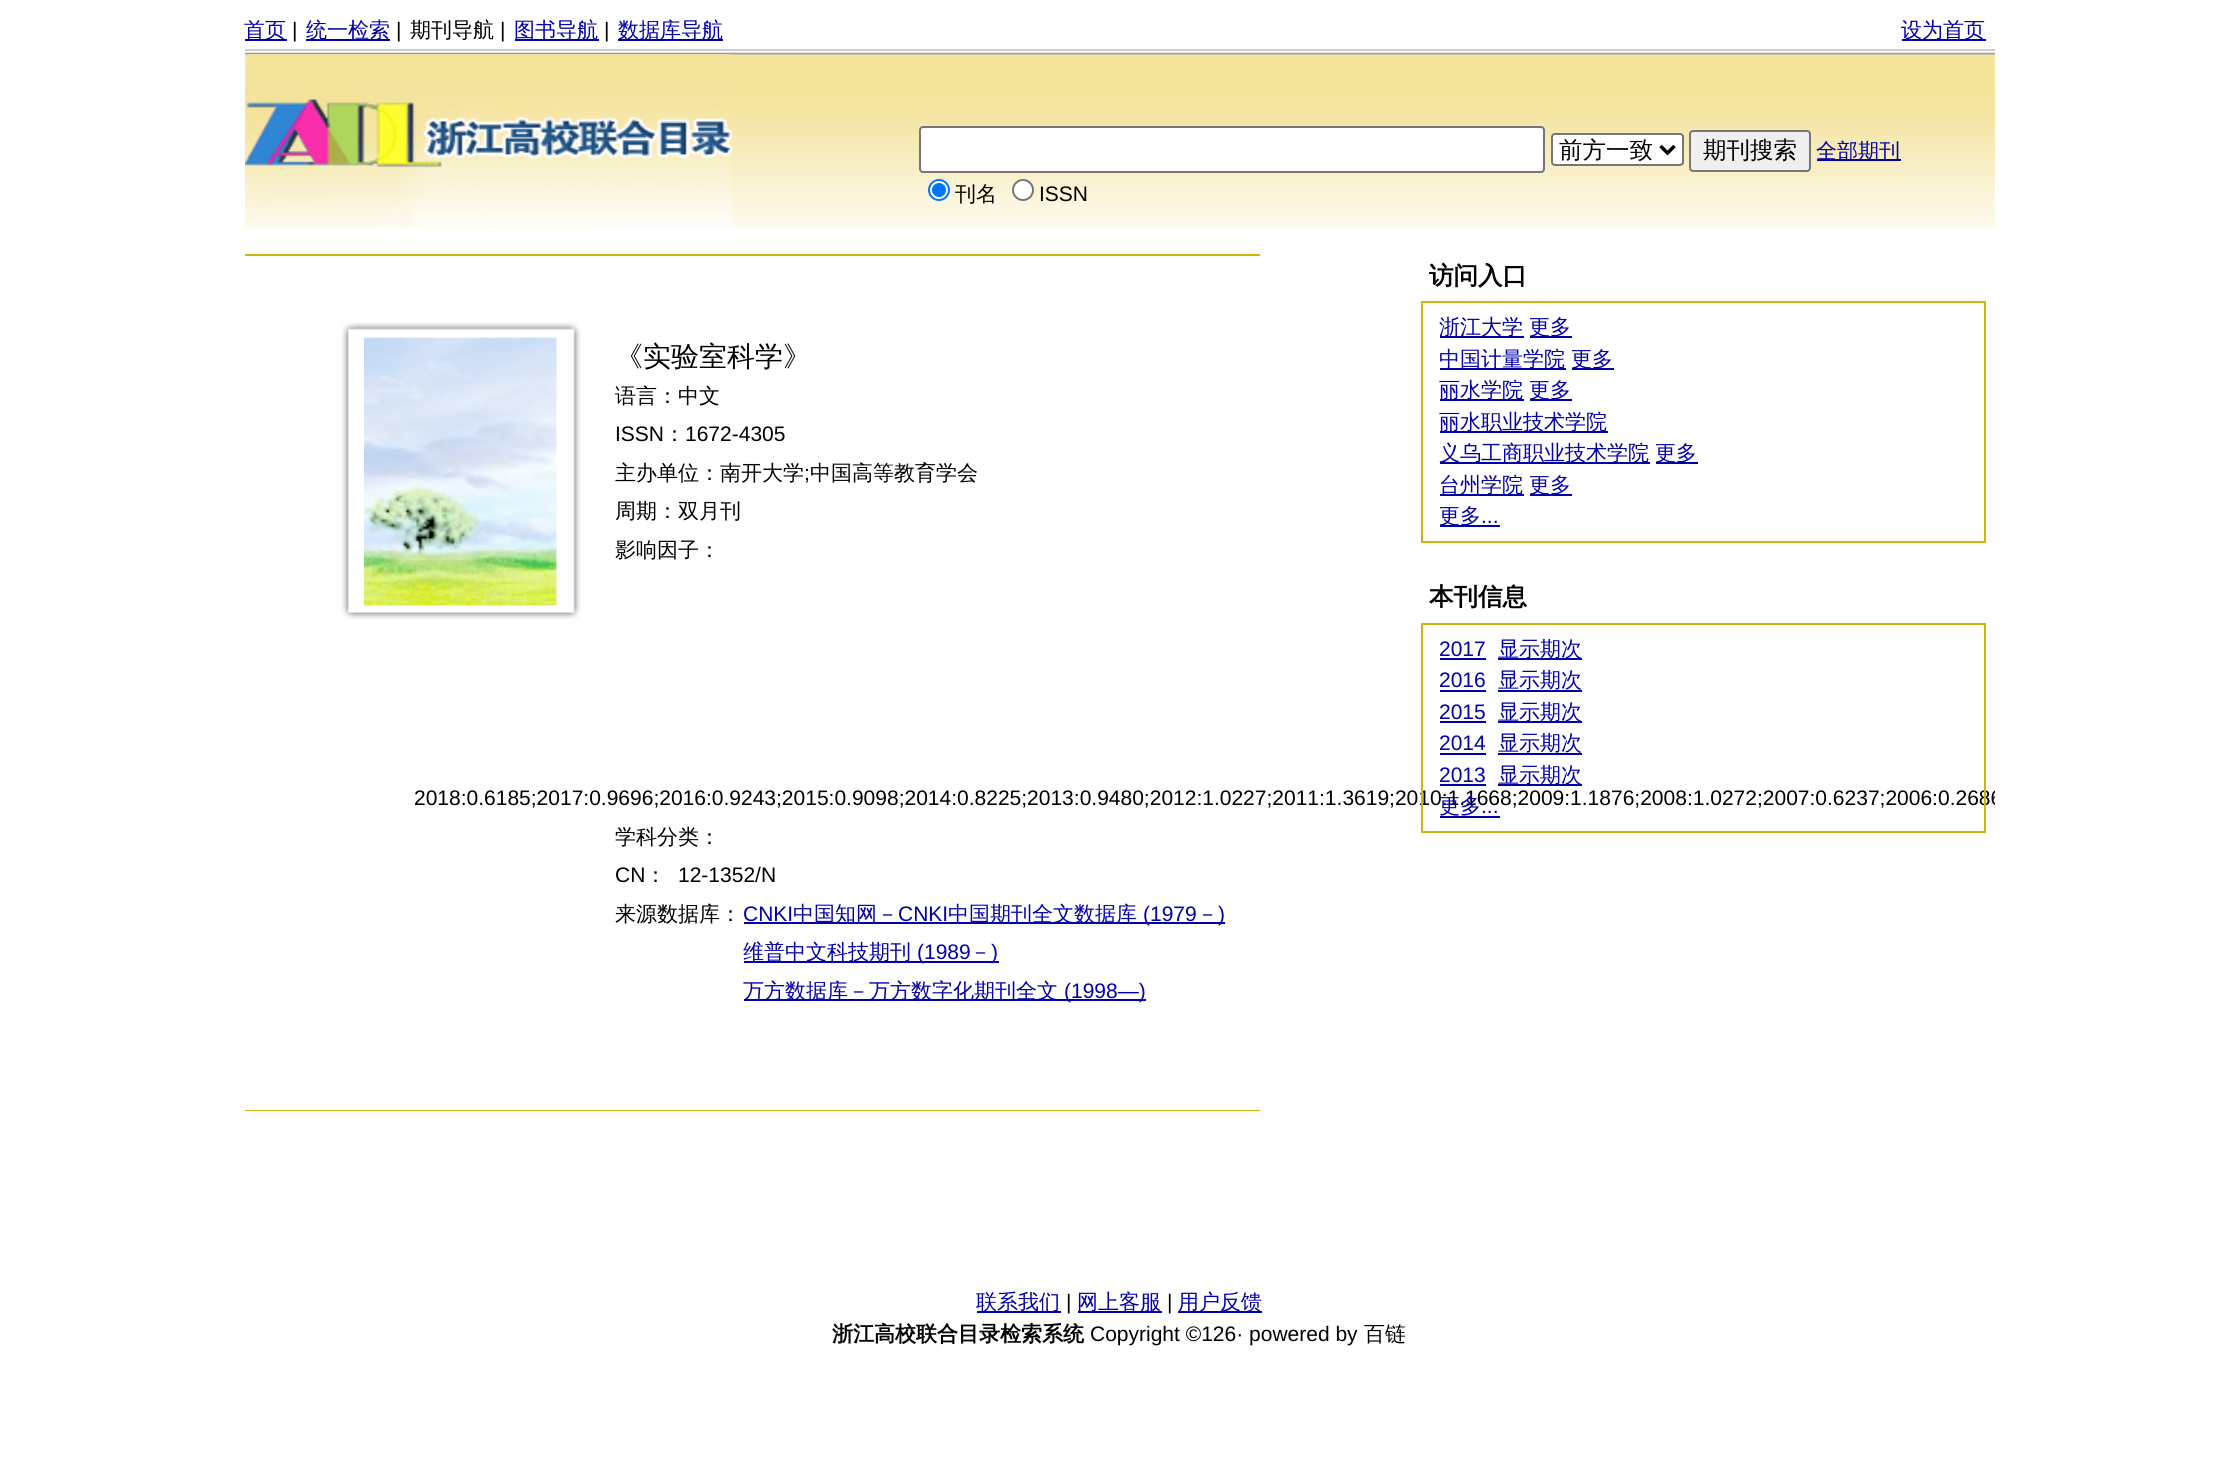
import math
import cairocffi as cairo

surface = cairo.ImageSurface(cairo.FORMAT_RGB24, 2237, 1460)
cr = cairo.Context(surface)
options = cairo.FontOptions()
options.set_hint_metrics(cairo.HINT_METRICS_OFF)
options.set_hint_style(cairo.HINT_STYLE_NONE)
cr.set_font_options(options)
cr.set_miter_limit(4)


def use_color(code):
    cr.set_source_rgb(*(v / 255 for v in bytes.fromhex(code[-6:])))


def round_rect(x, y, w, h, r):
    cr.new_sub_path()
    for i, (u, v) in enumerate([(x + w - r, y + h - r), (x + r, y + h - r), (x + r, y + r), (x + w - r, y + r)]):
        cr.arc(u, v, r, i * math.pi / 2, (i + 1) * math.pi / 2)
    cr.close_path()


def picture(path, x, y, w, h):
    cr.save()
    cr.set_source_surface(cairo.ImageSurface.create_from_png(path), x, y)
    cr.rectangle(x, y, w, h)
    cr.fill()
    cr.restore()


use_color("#ffffff")
cr.paint()
use_color("#cccccc")
cr.rectangle(245, 49, 1750, 2)
cr.fill()
use_color("#0200a8")
cr.rectangle(245, 39, 42, 2)
cr.fill()
cr.select_font_face("WenQuanYi Zen Hei Medium")
cr.set_font_size(21)
cr.move_to(244, 37)
cr.show_text("首页")
cr.select_font_face("Liberation Sans")
use_color("#000000")
cr.move_to(292, 37)
cr.show_text("|")
use_color("#0200a8")
cr.rectangle(306, 39, 84, 2)
cr.fill()
cr.select_font_face("WenQuanYi Zen Hei Medium")
cr.move_to(306, 37)
cr.show_text("统一检索")
cr.select_font_face("Liberation Sans")
use_color("#000000")
cr.move_to(396, 37)
cr.show_text("|")
cr.select_font_face("WenQuanYi Zen Hei Medium")
cr.move_to(410, 37)
cr.show_text("期刊导航")
cr.select_font_face("Liberation Sans")
cr.move_to(500, 37)
cr.show_text("|")
use_color("#0200a8")
cr.rectangle(515, 39, 84, 2)
cr.fill()
cr.select_font_face("WenQuanYi Zen Hei Medium")
cr.move_to(514, 37)
cr.show_text("图书导航")
cr.select_font_face("Liberation Sans")
use_color("#000000")
cr.move_to(604, 37)
cr.show_text("|")
use_color("#0200a8")
cr.rectangle(618, 39, 105, 2)
cr.fill()
cr.select_font_face("WenQuanYi Zen Hei Medium")
cr.move_to(618, 37)
cr.show_text("数据库导航")
cr.rectangle(1902, 39, 84, 2)
cr.fill()
cr.move_to(1901, 37)
cr.show_text("设为首页")
picture("img1.png", 245, 52, 1750, 176)
picture("img2.png", 245, 54, 487, 174)
use_color("#ffffff")
round_rect(920, 127, 624, 45, 3)
cr.fill_preserve()
use_color("#767676")
cr.stroke()
use_color("#ffffff")
round_rect(1552, 134, 131, 31, 3)
cr.fill_preserve()
use_color("#767676")
cr.stroke()
cr.new_path()
cr.move_to(1660.5, 146)
cr.line_to(1667.5, 153)
cr.line_to(1674.5, 146)
use_color("#000000")
cr.set_line_width(3.5)
cr.stroke()
cr.set_font_size(23.5)
cr.move_to(1559, 158)
cr.show_text("前方一致")
use_color("#efefef")
round_rect(1690, 131, 120, 40, 3)
cr.fill_preserve()
use_color("#767676")
cr.set_line_width(2)
cr.stroke()
use_color("#000000")
cr.move_to(1703, 158)
cr.show_text("期刊搜索")
use_color("#0200a8")
cr.rectangle(1817, 159, 84, 2)
cr.fill()
cr.set_font_size(21)
cr.move_to(1816, 158)
cr.show_text("全部期刊")
use_color("#ffffff")
cr.new_path()
cr.arc(939, 190, 10, 0, 2 * math.pi)
cr.fill_preserve()
use_color("#0075ff")
cr.stroke()
cr.arc(939, 190, 7, 0, 2 * math.pi)
cr.fill()
use_color("#000000")
cr.move_to(955, 201)
cr.show_text("刊名")
use_color("#ffffff")
cr.new_path()
cr.arc(1023, 190, 10, 0, 2 * math.pi)
cr.fill_preserve()
use_color("#767676")
cr.stroke()
cr.select_font_face("Liberation Sans")
use_color("#000000")
cr.move_to(1039, 201)
cr.show_text("ISSN")
cr.select_font_face("WenQuanYi Zen Hei", cairo.FONT_SLANT_NORMAL, cairo.FONT_WEIGHT_BOLD)
cr.set_font_size(24.5)
cr.move_to(1429, 284)
cr.show_text("访问入口")
cr.rectangle(1422, 302, 563, 240)
use_color("#ceb70d")
cr.stroke()
use_color("#0200a8")
cr.rectangle(1440, 336, 84, 2)
cr.fill()
cr.select_font_face("WenQuanYi Zen Hei Medium")
cr.set_font_size(21)
cr.move_to(1439, 334)
cr.show_text("浙江大学")
cr.rectangle(1530, 336, 42, 2)
cr.fill()
cr.move_to(1529, 334)
cr.show_text("更多")
cr.rectangle(1440, 368, 126, 2)
cr.fill()
cr.move_to(1439, 366)
cr.show_text("中国计量学院")
cr.rectangle(1572, 368, 42, 2)
cr.fill()
cr.move_to(1571, 366)
cr.show_text("更多")
cr.rectangle(1440, 399, 84, 2)
cr.fill()
cr.move_to(1439, 397)
cr.show_text("丽水学院")
cr.rectangle(1530, 399, 42, 2)
cr.fill()
cr.move_to(1529, 397)
cr.show_text("更多")
cr.rectangle(1440, 431, 168, 2)
cr.fill()
cr.move_to(1439, 429)
cr.show_text("丽水职业技术学院")
cr.rectangle(1440, 462, 210, 2)
cr.fill()
cr.move_to(1439, 460)
cr.show_text("义乌工商职业技术学院")
cr.rectangle(1656, 462, 42, 2)
cr.fill()
cr.move_to(1655, 460)
cr.show_text("更多")
cr.rectangle(1440, 494, 84, 2)
cr.fill()
cr.move_to(1439, 492)
cr.show_text("台州学院")
cr.rectangle(1530, 494, 42, 2)
cr.fill()
cr.move_to(1529, 492)
cr.show_text("更多")
cr.rectangle(1440, 525, 60, 2)
cr.fill()
cr.move_to(1439, 523)
cr.show_text("更多")
cr.select_font_face("Liberation Sans")
cr.move_to(1481, 523)
cr.show_text("...")
cr.select_font_face("WenQuanYi Zen Hei", cairo.FONT_SLANT_NORMAL, cairo.FONT_WEIGHT_BOLD)
cr.set_font_size(24.5)
use_color("#000000")
cr.move_to(1429, 605)
cr.show_text("本刊信息")
cr.save()
cr.rectangle(245, 53, 1750, 1058)
cr.clip()
cr.select_font_face("Liberation Sans")
cr.set_font_size(21)
cr.move_to(414, 805)
cr.show_text("2018:0.6185;2017:0.9696;2016:0.9243;2015:0.9098;2014:0.8225;2013:0.9480;2012:1.0227;2011:1.3619;2010:1.1668;2009:1.1876;2008:1.0272;2007:0.6237;2006:0.2686")
cr.restore()
cr.rectangle(1422, 624, 563, 208)
use_color("#ceb70d")
cr.stroke()
cr.select_font_face("Liberation Sans")
cr.set_font_size(21)
use_color("#0200a8")
cr.move_to(1439, 656)
cr.show_text("2017")
cr.rectangle(1440, 658, 46, 2)
cr.fill()
cr.rectangle(1498, 658, 84, 2)
cr.fill()
cr.select_font_face("WenQuanYi Zen Hei Medium")
cr.move_to(1498, 656)
cr.show_text("显示期次")
cr.select_font_face("Liberation Sans")
cr.move_to(1439, 687)
cr.show_text("2016")
cr.rectangle(1440, 690, 46, 2)
cr.fill()
cr.rectangle(1498, 690, 84, 2)
cr.fill()
cr.select_font_face("WenQuanYi Zen Hei Medium")
cr.move_to(1498, 687)
cr.show_text("显示期次")
cr.select_font_face("Liberation Sans")
cr.move_to(1439, 719)
cr.show_text("2015")
cr.rectangle(1440, 721, 46, 2)
cr.fill()
cr.rectangle(1498, 721, 84, 2)
cr.fill()
cr.select_font_face("WenQuanYi Zen Hei Medium")
cr.move_to(1498, 719)
cr.show_text("显示期次")
cr.select_font_face("Liberation Sans")
cr.move_to(1439, 750)
cr.show_text("2014")
cr.rectangle(1440, 753, 46, 2)
cr.fill()
cr.rectangle(1498, 753, 84, 2)
cr.fill()
cr.select_font_face("WenQuanYi Zen Hei Medium")
cr.move_to(1498, 750)
cr.show_text("显示期次")
cr.select_font_face("Liberation Sans")
cr.move_to(1439, 782)
cr.show_text("2013")
cr.rectangle(1440, 784, 46, 2)
cr.fill()
cr.rectangle(1498, 784, 84, 2)
cr.fill()
cr.select_font_face("WenQuanYi Zen Hei Medium")
cr.move_to(1498, 782)
cr.show_text("显示期次")
cr.move_to(1439, 813)
cr.show_text("更多")
cr.select_font_face("Liberation Sans")
cr.move_to(1481, 813)
cr.show_text("...")
cr.rectangle(1440, 816, 60, 2)
cr.fill()
use_color("#ceb70d")
cr.rectangle(245, 254, 1015, 2)
cr.fill()
cr.rectangle(245, 1110, 1015, 1)
cr.fill()
picture("img3.png", 341, 322, 240, 298)
picture("img4.png", 364, 337, 193, 269)
cr.select_font_face("WenQuanYi Zen Hei Medium")
cr.set_font_size(28)
use_color("#000000")
cr.move_to(615, 366)
cr.show_text("《实验室科学》")
cr.set_font_size(21)
cr.move_to(615, 403)
cr.show_text("语言：中文")
cr.select_font_face("Liberation Sans")
cr.move_to(615, 441)
cr.show_text("ISSN")
cr.select_font_face("WenQuanYi Zen Hei Medium")
cr.move_to(664, 441)
cr.show_text("：")
cr.select_font_face("Liberation Sans")
cr.move_to(685, 441)
cr.show_text("1672-4305")
cr.select_font_face("WenQuanYi Zen Hei Medium")
cr.move_to(615, 480)
cr.show_text("主办单位：南开大学")
cr.select_font_face("Liberation Sans")
cr.move_to(804, 480)
cr.show_text(";")
cr.select_font_face("WenQuanYi Zen Hei Medium")
cr.move_to(810, 480)
cr.show_text("中国高等教育学会")
cr.move_to(615, 518)
cr.show_text("周期：双月刊")
cr.move_to(615, 557)
cr.show_text("影响因子：")
cr.move_to(615, 844)
cr.show_text("学科分类：")
cr.select_font_face("Liberation Sans")
cr.move_to(615, 882)
cr.show_text("CN")
cr.select_font_face("WenQuanYi Zen Hei Medium")
cr.move_to(645, 882)
cr.show_text("：")
cr.select_font_face("Liberation Sans")
cr.move_to(678, 882)
cr.show_text("12-1352/N")
cr.select_font_face("WenQuanYi Zen Hei Medium")
cr.move_to(615, 921)
cr.show_text("来源数据库：")
cr.select_font_face("Liberation Sans")
use_color("#0200a8")
cr.move_to(743, 921)
cr.show_text("CNKI")
cr.rectangle(744, 922, 481, 2)
cr.fill()
cr.select_font_face("WenQuanYi Zen Hei Medium")
cr.move_to(793, 921)
cr.show_text("中国知网－")
cr.select_font_face("Liberation Sans")
cr.move_to(898, 921)
cr.show_text("CNKI")
cr.select_font_face("WenQuanYi Zen Hei Medium")
cr.move_to(948, 921)
cr.show_text("中国期刊全文数据库")
cr.select_font_face("Liberation Sans")
cr.move_to(1143, 921)
cr.show_text("(1979")
cr.select_font_face("WenQuanYi Zen Hei Medium")
cr.move_to(1197, 921)
cr.show_text("－")
cr.select_font_face("Liberation Sans")
cr.move_to(1218, 921)
cr.show_text(")")
cr.rectangle(744, 961, 255, 2)
cr.fill()
cr.select_font_face("WenQuanYi Zen Hei Medium")
cr.move_to(743, 959)
cr.show_text("维普中文科技期刊")
cr.select_font_face("Liberation Sans")
cr.move_to(917, 959)
cr.show_text("(1989")
cr.select_font_face("WenQuanYi Zen Hei Medium")
cr.move_to(970, 959)
cr.show_text("－")
cr.select_font_face("Liberation Sans")
cr.move_to(991, 959)
cr.show_text(")")
cr.rectangle(744, 999, 402, 2)
cr.fill()
cr.select_font_face("WenQuanYi Zen Hei Medium")
cr.move_to(743, 998)
cr.show_text("万方数据库－万方数字化期刊全文")
cr.select_font_face("Liberation Sans")
cr.move_to(1064, 998)
cr.show_text("(1998—)")
cr.rectangle(977, 1311, 84, 2)
cr.fill()
cr.select_font_face("WenQuanYi Zen Hei Medium")
cr.move_to(976, 1309)
cr.show_text("联系我们")
cr.select_font_face("Liberation Sans")
use_color("#000000")
cr.move_to(1066, 1309)
cr.show_text("|")
use_color("#0200a8")
cr.rectangle(1078, 1311, 84, 2)
cr.fill()
cr.select_font_face("WenQuanYi Zen Hei Medium")
cr.move_to(1077, 1309)
cr.show_text("网上客服")
cr.select_font_face("Liberation Sans")
use_color("#000000")
cr.move_to(1167, 1309)
cr.show_text("|")
use_color("#0200a8")
cr.rectangle(1178, 1311, 84, 2)
cr.fill()
cr.select_font_face("WenQuanYi Zen Hei Medium")
cr.move_to(1178, 1309)
cr.show_text("用户反馈")
cr.select_font_face("WenQuanYi Zen Hei", cairo.FONT_SLANT_NORMAL, cairo.FONT_WEIGHT_BOLD)
use_color("#000000")
cr.move_to(832, 1341)
cr.show_text("浙江高校联合目录检索系统")
cr.select_font_face("Liberation Sans")
cr.move_to(1090, 1341)
cr.show_text("Copyright ©126· powered by")
cr.select_font_face("WenQuanYi Zen Hei Medium")
cr.move_to(1364, 1341)
cr.show_text("百链")
surface.write_to_png("result.png")
